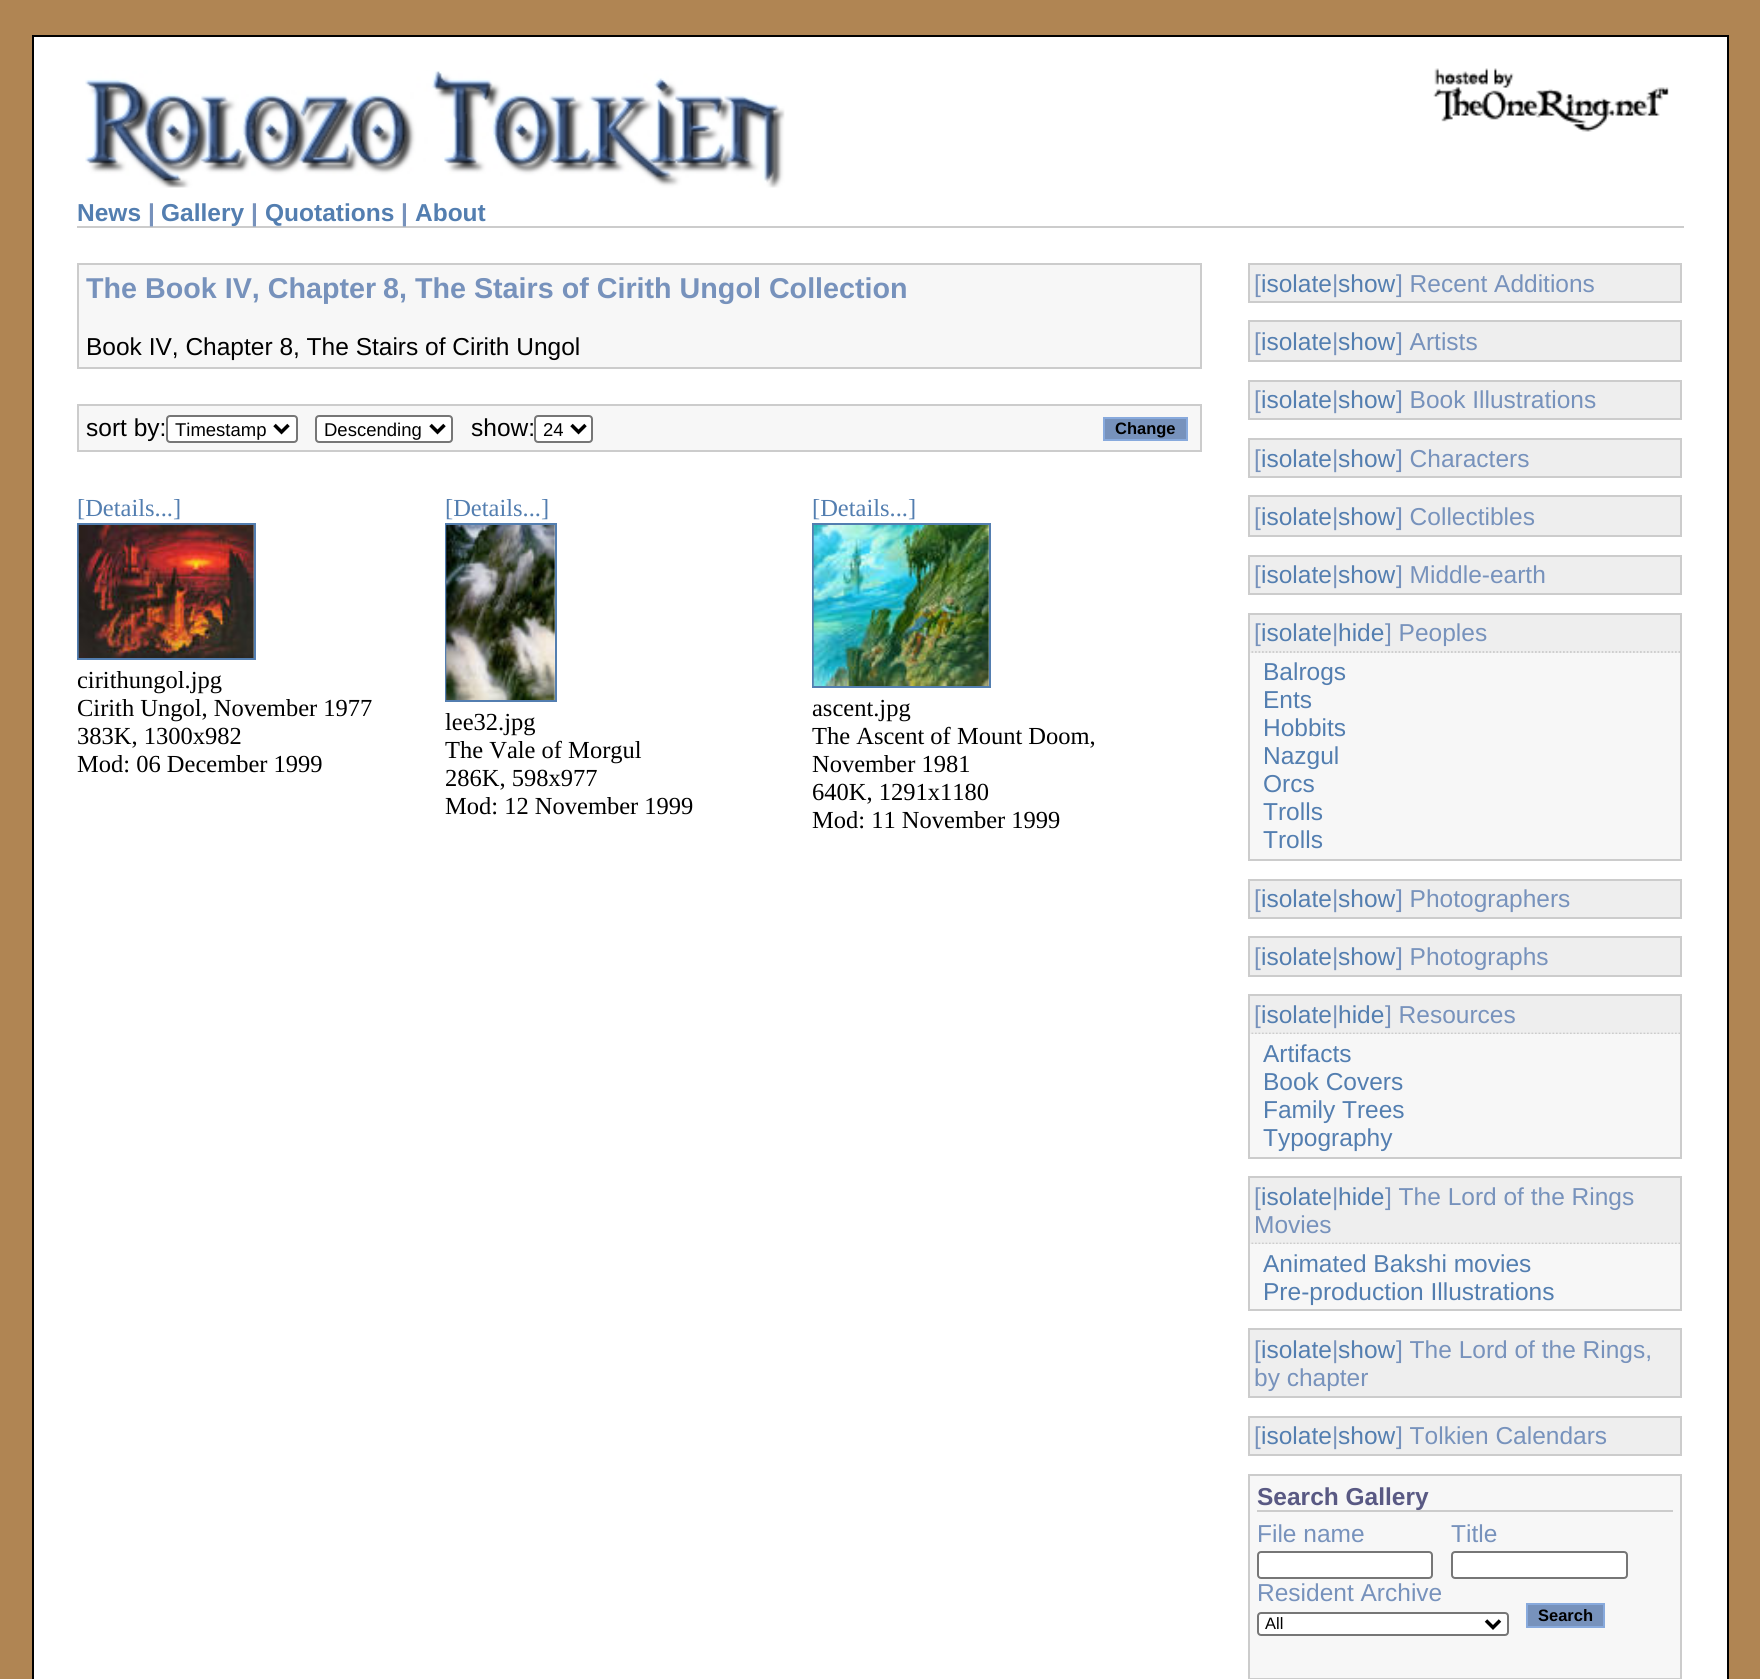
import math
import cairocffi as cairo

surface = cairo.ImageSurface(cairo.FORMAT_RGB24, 1760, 1679)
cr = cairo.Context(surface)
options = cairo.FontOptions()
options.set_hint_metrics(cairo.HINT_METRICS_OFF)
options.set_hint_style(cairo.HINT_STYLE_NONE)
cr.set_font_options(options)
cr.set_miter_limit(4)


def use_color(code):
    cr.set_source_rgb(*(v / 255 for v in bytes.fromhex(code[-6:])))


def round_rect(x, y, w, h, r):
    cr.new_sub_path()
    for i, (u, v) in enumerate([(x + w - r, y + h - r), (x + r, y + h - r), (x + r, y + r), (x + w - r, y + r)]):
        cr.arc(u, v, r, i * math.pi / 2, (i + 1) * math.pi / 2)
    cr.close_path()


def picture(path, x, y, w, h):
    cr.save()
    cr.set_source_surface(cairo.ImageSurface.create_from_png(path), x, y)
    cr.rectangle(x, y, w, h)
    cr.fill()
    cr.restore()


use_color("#b08553")
cr.paint()
use_color("#ffffff")
cr.rectangle(33, 36, 1695, 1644)
cr.fill_preserve()
use_color("#000000")
cr.stroke()
picture("img1.png", 85, 70, 700, 118)
picture("img2.png", 1433, 68, 236, 64)
use_color("#cccccc")
cr.rectangle(77, 226, 1607, 2)
cr.fill()
cr.select_font_face("Liberation Sans", cairo.FONT_SLANT_NORMAL, cairo.FONT_WEIGHT_BOLD)
cr.set_font_size(24.5)
use_color("#537eb0")
cr.move_to(77, 221)
cr.show_text("News")
use_color("#7792bc")
cr.move_to(148, 221)
cr.show_text("|")
use_color("#537eb0")
cr.move_to(161, 221)
cr.show_text("Gallery")
use_color("#7792bc")
cr.move_to(251, 221)
cr.show_text("|")
use_color("#537eb0")
cr.move_to(265, 221)
cr.show_text("Quotations")
use_color("#7792bc")
cr.move_to(401, 221)
cr.show_text("|")
use_color("#537eb0")
cr.move_to(415, 221)
cr.show_text("About")
use_color("#f7f7f7")
cr.rectangle(78, 264, 1123, 104)
cr.fill_preserve()
use_color("#cccccc")
cr.stroke()
cr.set_font_size(28.7)
use_color("#7792bc")
cr.move_to(86, 298)
cr.show_text("The Book IV, Chapter")
cr.move_to(383, 298)
cr.show_text("8, The Stairs of Cirith Ungol Collection")
cr.select_font_face("Liberation Sans")
cr.set_font_size(24.5)
use_color("#000000")
cr.move_to(86, 355)
cr.show_text("Book IV, Chapter 8, The Stairs of Cirith Ungol")
use_color("#f7f7f7")
cr.rectangle(78, 405, 1123, 46)
cr.fill_preserve()
use_color("#cccccc")
cr.stroke()
use_color("#000000")
cr.move_to(86, 436)
cr.show_text("sort by:")
use_color("#ffffff")
round_rect(167, 416, 130, 26, 3)
cr.fill_preserve()
use_color("#767676")
cr.stroke()
cr.new_path()
cr.move_to(274.5, 425)
cr.line_to(281.5, 432)
cr.line_to(288.5, 425)
use_color("#000000")
cr.set_line_width(3.5)
cr.stroke()
cr.set_font_size(18.5)
cr.move_to(175, 436)
cr.show_text("Timestamp")
use_color("#ffffff")
round_rect(316, 416, 136, 26, 3)
cr.fill_preserve()
use_color("#767676")
cr.set_line_width(2)
cr.stroke()
cr.new_path()
cr.move_to(430.5, 425)
cr.line_to(437.5, 432)
cr.line_to(444.5, 425)
use_color("#000000")
cr.set_line_width(3.5)
cr.stroke()
cr.move_to(324, 436)
cr.show_text("Descending")
cr.set_font_size(24.5)
cr.move_to(471, 436)
cr.show_text("show:")
use_color("#ffffff")
round_rect(535, 416, 57, 26, 3)
cr.fill_preserve()
use_color("#767676")
cr.set_line_width(2)
cr.stroke()
cr.new_path()
cr.move_to(571.5, 425)
cr.line_to(578.5, 432)
cr.line_to(585.5, 425)
use_color("#000000")
cr.set_line_width(3.5)
cr.stroke()
cr.set_font_size(18.5)
cr.move_to(543, 436)
cr.show_text("24")
use_color("#7792bc")
cr.rectangle(1104, 418, 83, 22)
cr.fill_preserve()
use_color("#88aadd")
cr.set_line_width(2)
cr.stroke()
cr.select_font_face("Liberation Sans", cairo.FONT_SLANT_NORMAL, cairo.FONT_WEIGHT_BOLD)
cr.set_font_size(16.5)
use_color("#000000")
cr.move_to(1115, 434)
cr.show_text("Change")
cr.select_font_face("Liberation Serif")
cr.set_font_size(24.5)
use_color("#537eb0")
cr.move_to(77, 516)
cr.show_text("[Details...]")
cr.rectangle(78, 524, 177, 135)
cr.stroke()
picture("img3.png", 78, 525, 176, 133)
use_color("#000000")
cr.move_to(77, 688)
cr.show_text("cirithungol.jpg")
cr.move_to(77, 716)
cr.show_text("Cirith Ungol, November 1977")
cr.move_to(77, 744)
cr.show_text("383K, 1300x982")
cr.move_to(77, 772)
cr.show_text("Mod: 06 December 1999")
use_color("#537eb0")
cr.move_to(445, 516)
cr.show_text("[Details...]")
cr.rectangle(446, 524, 110, 177)
cr.stroke()
picture("img4.png", 446, 525, 109, 175)
use_color("#000000")
cr.move_to(445, 730)
cr.show_text("lee32.jpg")
cr.move_to(445, 758)
cr.show_text("The Vale of Morgul")
cr.move_to(445, 786)
cr.show_text("286K, 598x977")
cr.move_to(445, 814)
cr.show_text("Mod: 12 November 1999")
use_color("#537eb0")
cr.move_to(812, 516)
cr.show_text("[Details...]")
cr.rectangle(813, 524, 177, 163)
cr.stroke()
picture("img5.png", 813, 525, 176, 161)
use_color("#000000")
cr.move_to(812, 716)
cr.show_text("ascent.jpg")
cr.move_to(812, 744)
cr.show_text("The Ascent of Mount Doom,")
cr.move_to(812, 772)
cr.show_text("November 1981")
cr.move_to(812, 800)
cr.show_text("640K, 1291x1180")
cr.move_to(812, 828)
cr.show_text("Mod: 11 November 1999")
use_color("#eeeeee")
cr.rectangle(1249, 264, 432, 38)
cr.fill_preserve()
use_color("#cccccc")
cr.stroke()
cr.select_font_face("Liberation Sans")
use_color("#7792bc")
cr.move_to(1254, 292)
cr.show_text("[")
use_color("#537eb0")
cr.move_to(1261, 292)
cr.show_text("isolate")
use_color("#7792bc")
cr.move_to(1332, 292)
cr.show_text("|")
use_color("#537eb0")
cr.move_to(1338, 292)
cr.show_text("show")
use_color("#7792bc")
cr.move_to(1396, 292)
cr.show_text("] Recent Additions")
use_color("#eeeeee")
cr.rectangle(1249, 321, 432, 40)
cr.fill_preserve()
use_color("#cccccc")
cr.stroke()
use_color("#7792bc")
cr.move_to(1254, 350)
cr.show_text("[")
use_color("#537eb0")
cr.move_to(1261, 350)
cr.show_text("isolate")
use_color("#7792bc")
cr.move_to(1332, 350)
cr.show_text("|")
use_color("#537eb0")
cr.move_to(1338, 350)
cr.show_text("show")
use_color("#7792bc")
cr.move_to(1396, 350)
cr.show_text("] Artists")
use_color("#eeeeee")
cr.rectangle(1249, 381, 432, 38)
cr.fill_preserve()
use_color("#cccccc")
cr.stroke()
use_color("#7792bc")
cr.move_to(1254, 408)
cr.show_text("[")
use_color("#537eb0")
cr.move_to(1261, 408)
cr.show_text("isolate")
use_color("#7792bc")
cr.move_to(1332, 408)
cr.show_text("|")
use_color("#537eb0")
cr.move_to(1338, 408)
cr.show_text("show")
use_color("#7792bc")
cr.move_to(1396, 408)
cr.show_text("] Book Illustrations")
use_color("#eeeeee")
cr.rectangle(1249, 439, 432, 38)
cr.fill_preserve()
use_color("#cccccc")
cr.stroke()
use_color("#7792bc")
cr.move_to(1254, 467)
cr.show_text("[")
use_color("#537eb0")
cr.move_to(1261, 467)
cr.show_text("isolate")
use_color("#7792bc")
cr.move_to(1332, 467)
cr.show_text("|")
use_color("#537eb0")
cr.move_to(1338, 467)
cr.show_text("show")
use_color("#7792bc")
cr.move_to(1396, 467)
cr.show_text("] Characters")
use_color("#eeeeee")
cr.rectangle(1249, 496, 432, 40)
cr.fill_preserve()
use_color("#cccccc")
cr.stroke()
use_color("#7792bc")
cr.move_to(1254, 525)
cr.show_text("[")
use_color("#537eb0")
cr.move_to(1261, 525)
cr.show_text("isolate")
use_color("#7792bc")
cr.move_to(1332, 525)
cr.show_text("|")
use_color("#537eb0")
cr.move_to(1338, 525)
cr.show_text("show")
use_color("#7792bc")
cr.move_to(1396, 525)
cr.show_text("] Collectibles")
use_color("#eeeeee")
cr.rectangle(1249, 556, 432, 38)
cr.fill_preserve()
use_color("#cccccc")
cr.stroke()
use_color("#7792bc")
cr.move_to(1254, 583)
cr.show_text("[")
use_color("#537eb0")
cr.move_to(1261, 583)
cr.show_text("isolate")
use_color("#7792bc")
cr.move_to(1332, 583)
cr.show_text("|")
use_color("#537eb0")
cr.move_to(1338, 583)
cr.show_text("show")
use_color("#7792bc")
cr.move_to(1396, 583)
cr.show_text("] Middle-earth")
use_color("#eeeeee")
cr.rectangle(1250, 615, 430, 38)
cr.fill()
use_color("#cccccc")
cr.rectangle(1248, 613, 434, 2)
cr.fill()
cr.rectangle(1680, 613, 2, 248)
cr.fill()
cr.new_path()
cr.move_to(1248, 652)
cr.line_to(1682, 652)
cr.set_line_width(1.8)
cr.set_dash([1.75, 1.75])
cr.stroke()
cr.rectangle(1248, 613, 2, 40)
cr.fill()
use_color("#7792bc")
cr.move_to(1254, 641)
cr.show_text("[")
use_color("#537eb0")
cr.move_to(1261, 641)
cr.show_text("isolate")
use_color("#7792bc")
cr.move_to(1332, 641)
cr.show_text("|")
use_color("#537eb0")
cr.move_to(1338, 641)
cr.show_text("hide")
use_color("#7792bc")
cr.move_to(1385, 641)
cr.show_text("] Peoples")
use_color("#f7f7f7")
cr.rectangle(1250, 653, 430, 206)
cr.fill()
use_color("#cccccc")
cr.rectangle(1248, 859, 434, 2)
cr.fill()
cr.rectangle(1248, 653, 2, 208)
cr.fill()
use_color("#537eb0")
cr.move_to(1263, 680)
cr.show_text("Balrogs")
cr.move_to(1263, 708)
cr.show_text("Ents")
cr.move_to(1263, 736)
cr.show_text("Hobbits")
cr.move_to(1263, 764)
cr.show_text("Nazgul")
cr.move_to(1263, 792)
cr.show_text("Orcs")
cr.move_to(1263, 820)
cr.show_text("Trolls")
cr.move_to(1263, 848)
cr.show_text("Trolls")
use_color("#eeeeee")
cr.rectangle(1249, 880, 432, 38)
cr.fill_preserve()
use_color("#cccccc")
cr.set_line_width(2)
cr.set_dash([])
cr.stroke()
use_color("#7792bc")
cr.move_to(1254, 907)
cr.show_text("[")
use_color("#537eb0")
cr.move_to(1261, 907)
cr.show_text("isolate")
use_color("#7792bc")
cr.move_to(1332, 907)
cr.show_text("|")
use_color("#537eb0")
cr.move_to(1338, 907)
cr.show_text("show")
use_color("#7792bc")
cr.move_to(1396, 907)
cr.show_text("] Photographers")
use_color("#eeeeee")
cr.rectangle(1249, 937, 432, 39)
cr.fill_preserve()
use_color("#cccccc")
cr.stroke()
use_color("#7792bc")
cr.move_to(1254, 965)
cr.show_text("[")
use_color("#537eb0")
cr.move_to(1261, 965)
cr.show_text("isolate")
use_color("#7792bc")
cr.move_to(1332, 965)
cr.show_text("|")
use_color("#537eb0")
cr.move_to(1338, 965)
cr.show_text("show")
use_color("#7792bc")
cr.move_to(1396, 965)
cr.show_text("] Photographs")
use_color("#eeeeee")
cr.rectangle(1250, 996, 430, 38)
cr.fill()
use_color("#cccccc")
cr.rectangle(1248, 994, 434, 2)
cr.fill()
cr.rectangle(1680, 994, 2, 40)
cr.fill()
cr.new_path()
cr.move_to(1248, 1033.5)
cr.line_to(1682, 1033.5)
cr.set_line_width(1.8)
cr.set_dash([1.75, 1.75])
cr.stroke()
cr.rectangle(1248, 994, 2, 40)
cr.fill()
use_color("#7792bc")
cr.move_to(1254, 1023)
cr.show_text("[")
use_color("#537eb0")
cr.move_to(1261, 1023)
cr.show_text("isolate")
use_color("#7792bc")
cr.move_to(1332, 1023)
cr.show_text("|")
use_color("#537eb0")
cr.move_to(1338, 1023)
cr.show_text("hide")
use_color("#7792bc")
cr.move_to(1385, 1023)
cr.show_text("] Resources")
use_color("#f7f7f7")
cr.rectangle(1250, 1034, 430, 123)
cr.fill()
use_color("#cccccc")
cr.rectangle(1680, 1034, 2, 125)
cr.fill()
cr.rectangle(1248, 1157, 434, 2)
cr.fill()
cr.rectangle(1248, 1034, 2, 125)
cr.fill()
use_color("#537eb0")
cr.move_to(1263, 1062)
cr.show_text("Artifacts")
cr.move_to(1263, 1090)
cr.show_text("Book Covers")
cr.move_to(1263, 1118)
cr.show_text("Family Trees")
cr.move_to(1263, 1146)
cr.show_text("Typography")
use_color("#eeeeee")
cr.rectangle(1250, 1178, 430, 66)
cr.fill()
use_color("#cccccc")
cr.rectangle(1248, 1176, 434, 2)
cr.fill()
cr.rectangle(1680, 1176, 2, 68)
cr.fill()
cr.new_path()
cr.move_to(1248, 1243.5)
cr.line_to(1682, 1243.5)
cr.stroke()
cr.rectangle(1248, 1176, 2, 68)
cr.fill()
use_color("#7792bc")
cr.move_to(1254, 1205)
cr.show_text("[")
use_color("#537eb0")
cr.move_to(1261, 1205)
cr.show_text("isolate")
use_color("#7792bc")
cr.move_to(1332, 1205)
cr.show_text("|")
use_color("#537eb0")
cr.move_to(1338, 1205)
cr.show_text("hide")
use_color("#7792bc")
cr.move_to(1385, 1205)
cr.show_text("] The Lord of the Rings")
cr.move_to(1254, 1233)
cr.show_text("Movies")
use_color("#f7f7f7")
cr.rectangle(1250, 1244, 430, 65)
cr.fill()
use_color("#cccccc")
cr.rectangle(1680, 1244, 2, 67)
cr.fill()
cr.rectangle(1248, 1309, 434, 2)
cr.fill()
cr.rectangle(1248, 1244, 2, 67)
cr.fill()
use_color("#537eb0")
cr.move_to(1263, 1272)
cr.show_text("Animated Bakshi movies")
cr.move_to(1263, 1300)
cr.show_text("Pre-production Illustrations")
use_color("#eeeeee")
cr.rectangle(1249, 1329, 432, 68)
cr.fill_preserve()
use_color("#cccccc")
cr.set_line_width(2)
cr.set_dash([])
cr.stroke()
use_color("#7792bc")
cr.move_to(1254, 1358)
cr.show_text("[")
use_color("#537eb0")
cr.move_to(1261, 1358)
cr.show_text("isolate")
use_color("#7792bc")
cr.move_to(1332, 1358)
cr.show_text("|")
use_color("#537eb0")
cr.move_to(1338, 1358)
cr.show_text("show")
use_color("#7792bc")
cr.move_to(1396, 1358)
cr.show_text("] The Lord of the Rings,")
cr.move_to(1254, 1386)
cr.show_text("by chapter")
use_color("#eeeeee")
cr.rectangle(1249, 1417, 432, 38)
cr.fill_preserve()
use_color("#cccccc")
cr.stroke()
use_color("#7792bc")
cr.move_to(1254, 1444)
cr.show_text("[")
use_color("#537eb0")
cr.move_to(1261, 1444)
cr.show_text("isolate")
use_color("#7792bc")
cr.move_to(1332, 1444)
cr.show_text("|")
use_color("#537eb0")
cr.move_to(1338, 1444)
cr.show_text("show")
use_color("#7792bc")
cr.move_to(1396, 1444)
cr.show_text("] Tolkien Calendars")
use_color("#f7f7f7")
cr.rectangle(1249, 1475, 432, 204)
cr.fill_preserve()
use_color("#cccccc")
cr.stroke()
cr.rectangle(1257, 1510, 416, 2)
cr.fill()
cr.select_font_face("Liberation Sans", cairo.FONT_SLANT_NORMAL, cairo.FONT_WEIGHT_BOLD)
use_color("#595983")
cr.move_to(1257, 1505)
cr.show_text("Search Gallery")
cr.select_font_face("Liberation Sans")
use_color("#7792bc")
cr.move_to(1257, 1542)
cr.show_text("File name")
use_color("#ffffff")
round_rect(1258, 1552, 174, 26, 3)
cr.fill_preserve()
use_color("#767676")
cr.stroke()
use_color("#7792bc")
cr.move_to(1451, 1542)
cr.show_text("Title")
use_color("#ffffff")
round_rect(1452, 1552, 175, 26, 3)
cr.fill_preserve()
use_color("#767676")
cr.stroke()
use_color("#7792bc")
cr.move_to(1257, 1601)
cr.show_text("Resident Archive")
use_color("#ffffff")
round_rect(1258, 1613, 250, 22, 3)
cr.fill_preserve()
use_color("#767676")
cr.stroke()
cr.new_path()
cr.move_to(1486, 1620.5)
cr.line_to(1493, 1627.5)
cr.line_to(1500, 1620.5)
use_color("#000000")
cr.set_line_width(3.5)
cr.stroke()
cr.set_font_size(16.5)
cr.move_to(1265, 1629)
cr.show_text("All")
use_color("#7792bc")
cr.rectangle(1527, 1604, 77, 23)
cr.fill_preserve()
use_color("#88aadd")
cr.set_line_width(2)
cr.stroke()
cr.select_font_face("Liberation Sans", cairo.FONT_SLANT_NORMAL, cairo.FONT_WEIGHT_BOLD)
use_color("#000000")
cr.move_to(1538, 1621)
cr.show_text("Search")
surface.write_to_png("result.png")
